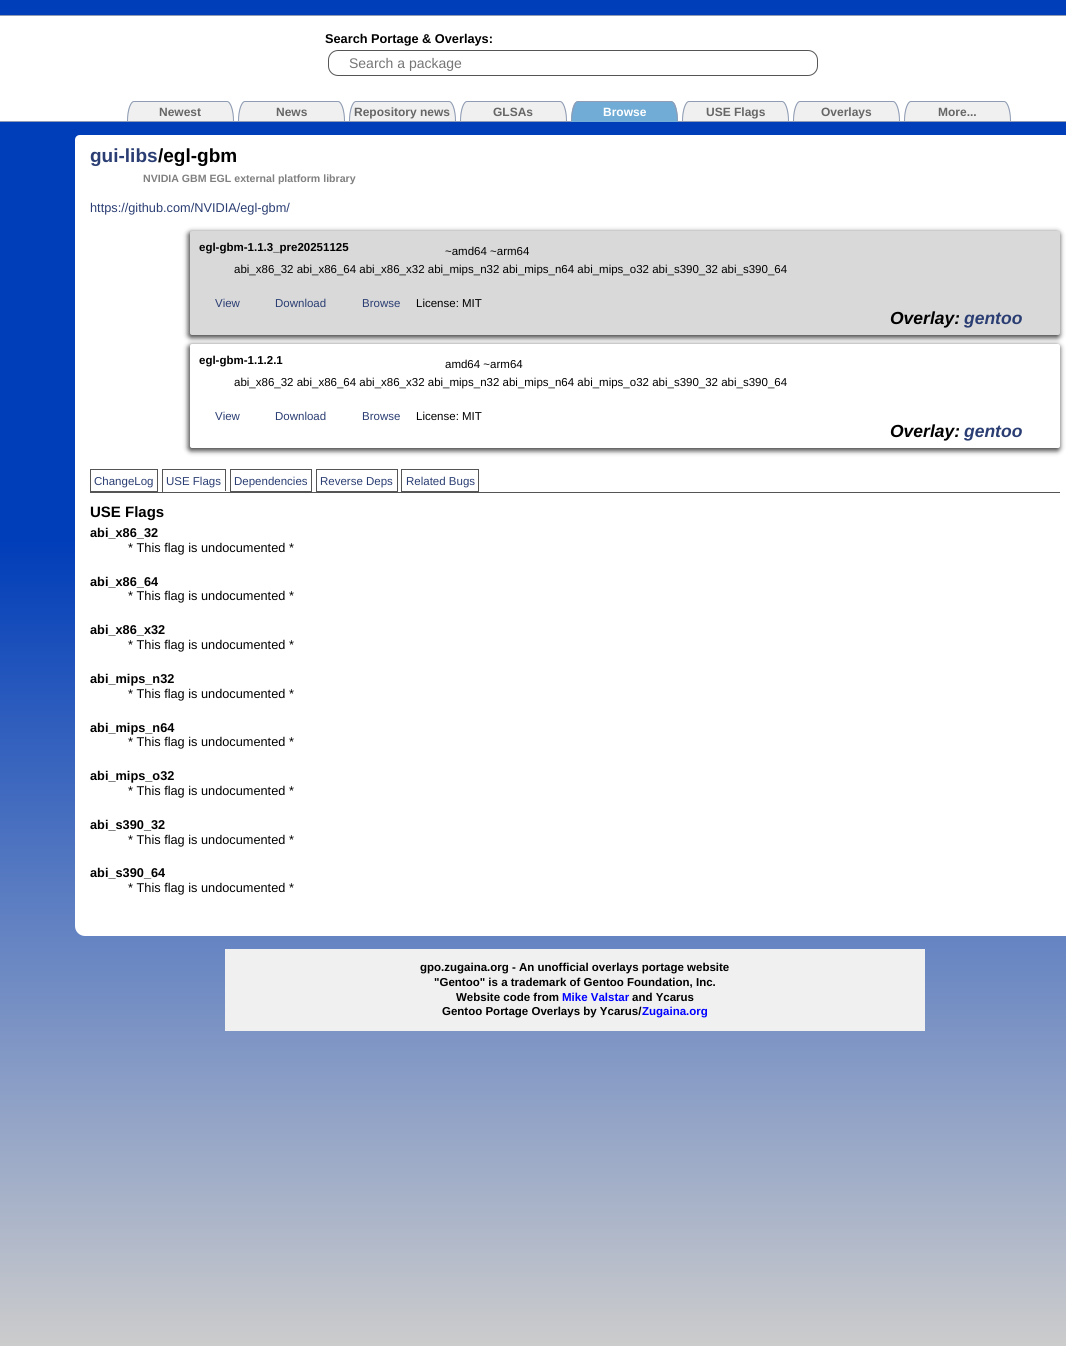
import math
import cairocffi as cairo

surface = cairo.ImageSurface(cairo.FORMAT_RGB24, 1066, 1346)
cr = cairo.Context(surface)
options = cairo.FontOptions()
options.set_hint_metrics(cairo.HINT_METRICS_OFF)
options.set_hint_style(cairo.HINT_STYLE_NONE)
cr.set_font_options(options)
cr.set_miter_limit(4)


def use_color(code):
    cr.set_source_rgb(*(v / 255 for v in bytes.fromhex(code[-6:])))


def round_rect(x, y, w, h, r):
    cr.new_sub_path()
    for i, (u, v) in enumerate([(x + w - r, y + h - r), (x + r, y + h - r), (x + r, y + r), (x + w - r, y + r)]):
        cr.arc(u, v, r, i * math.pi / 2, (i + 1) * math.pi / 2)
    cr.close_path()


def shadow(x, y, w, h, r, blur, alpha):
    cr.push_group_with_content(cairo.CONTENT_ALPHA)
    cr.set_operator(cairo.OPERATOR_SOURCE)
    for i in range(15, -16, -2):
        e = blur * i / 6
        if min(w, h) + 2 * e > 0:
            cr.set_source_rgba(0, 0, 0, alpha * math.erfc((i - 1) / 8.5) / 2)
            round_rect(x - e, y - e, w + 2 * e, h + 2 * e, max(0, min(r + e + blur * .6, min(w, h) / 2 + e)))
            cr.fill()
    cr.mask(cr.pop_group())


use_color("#ffffff")
cr.paint()
gradient = cairo.LinearGradient(0, 0, 0, 1346)
gradient.add_color_stop_rgba(0.4, 0, 0.239, 0.725, 1)
gradient.add_color_stop_rgba(1, 0.8, 0.8, 0.8, 1)
cr.set_source(gradient)
cr.rectangle(0, 0, 1066, 1346)
cr.fill()
use_color("#ffffff")
cr.rectangle(0, 16, 1066, 105)
cr.fill()
use_color("#8f9cb4")
cr.rectangle(0, 15, 1066, 1)
cr.fill()
cr.rectangle(0, 121, 1066, 1)
cr.fill()
cr.select_font_face("Liberation Sans", cairo.FONT_SLANT_NORMAL, cairo.FONT_WEIGHT_BOLD)
cr.set_font_size(12.75)
use_color("#000000")
cr.move_to(325, 43)
cr.show_text("Search Portage & Overlays:")
round_rect(328.5, 50.5, 489, 25, 9.5)
use_color("#555555")
cr.set_line_width(1)
cr.stroke()
cr.select_font_face("Liberation Sans")
cr.set_font_size(14)
use_color("#757575")
cr.move_to(349, 68)
cr.show_text("Search a package")
use_color("#f0f0f0")
cr.new_path()
cr.move_to(134, 101)
cr.line_to(227, 101)
cr.curve_to(231, 101, 234, 110, 234, 121)
cr.line_to(127, 121)
cr.curve_to(127, 110, 130, 101, 134, 101)
cr.close_path()
cr.fill()
use_color("#8f9cb4")
cr.set_fill_rule(cairo.FILL_RULE_EVEN_ODD)
cr.new_path()
cr.move_to(134, 101)
cr.line_to(227, 101)
cr.curve_to(231, 101, 234, 110, 234, 121)
cr.line_to(127, 121)
cr.curve_to(127, 110, 130, 101, 134, 101)
cr.close_path()
cr.move_to(134, 102)
cr.line_to(227, 102)
cr.curve_to(230, 102, 233, 111, 233, 121)
cr.line_to(128, 121)
cr.curve_to(128, 111, 131, 102, 134, 102)
cr.close_path()
cr.fill()
cr.select_font_face("Liberation Sans", cairo.FONT_SLANT_NORMAL, cairo.FONT_WEIGHT_BOLD)
cr.set_font_size(12)
use_color("#666666")
cr.move_to(159, 116)
cr.show_text("Newest")
use_color("#f0f0f0")
cr.set_fill_rule(cairo.FILL_RULE_WINDING)
cr.new_path()
cr.move_to(245, 101)
cr.line_to(338, 101)
cr.curve_to(342, 101, 345, 110, 345, 121)
cr.line_to(238, 121)
cr.curve_to(238, 110, 241, 101, 245, 101)
cr.close_path()
cr.fill()
use_color("#8f9cb4")
cr.set_fill_rule(cairo.FILL_RULE_EVEN_ODD)
cr.new_path()
cr.move_to(245, 101)
cr.line_to(338, 101)
cr.curve_to(342, 101, 345, 110, 345, 121)
cr.line_to(238, 121)
cr.curve_to(238, 110, 241, 101, 245, 101)
cr.close_path()
cr.move_to(245, 102)
cr.line_to(338, 102)
cr.curve_to(341, 102, 344, 111, 344, 121)
cr.line_to(239, 121)
cr.curve_to(239, 111, 242, 102, 245, 102)
cr.close_path()
cr.fill()
use_color("#666666")
cr.move_to(276, 116)
cr.show_text("News")
use_color("#f0f0f0")
cr.set_fill_rule(cairo.FILL_RULE_WINDING)
cr.new_path()
cr.move_to(356, 101)
cr.line_to(449, 101)
cr.curve_to(453, 101, 456, 110, 456, 121)
cr.line_to(349, 121)
cr.curve_to(349, 110, 352, 101, 356, 101)
cr.close_path()
cr.fill()
use_color("#8f9cb4")
cr.set_fill_rule(cairo.FILL_RULE_EVEN_ODD)
cr.new_path()
cr.move_to(356, 101)
cr.line_to(449, 101)
cr.curve_to(453, 101, 456, 110, 456, 121)
cr.line_to(349, 121)
cr.curve_to(349, 110, 352, 101, 356, 101)
cr.close_path()
cr.move_to(356, 102)
cr.line_to(449, 102)
cr.curve_to(452, 102, 455, 111, 455, 121)
cr.line_to(350, 121)
cr.curve_to(350, 111, 353, 102, 356, 102)
cr.close_path()
cr.fill()
use_color("#666666")
cr.move_to(354, 116)
cr.show_text("Repository news")
use_color("#f0f0f0")
cr.set_fill_rule(cairo.FILL_RULE_WINDING)
cr.new_path()
cr.move_to(467, 101)
cr.line_to(560, 101)
cr.curve_to(564, 101, 567, 110, 567, 121)
cr.line_to(460, 121)
cr.curve_to(460, 110, 463, 101, 467, 101)
cr.close_path()
cr.fill()
use_color("#8f9cb4")
cr.set_fill_rule(cairo.FILL_RULE_EVEN_ODD)
cr.new_path()
cr.move_to(467, 101)
cr.line_to(560, 101)
cr.curve_to(564, 101, 567, 110, 567, 121)
cr.line_to(460, 121)
cr.curve_to(460, 110, 463, 101, 467, 101)
cr.close_path()
cr.move_to(467, 102)
cr.line_to(560, 102)
cr.curve_to(563, 102, 566, 111, 566, 121)
cr.line_to(461, 121)
cr.curve_to(461, 111, 464, 102, 467, 102)
cr.close_path()
cr.fill()
use_color("#666666")
cr.move_to(493, 116)
cr.show_text("GLSAs")
use_color("#71acd6")
cr.set_fill_rule(cairo.FILL_RULE_WINDING)
cr.new_path()
cr.move_to(578, 101)
cr.line_to(671, 101)
cr.curve_to(675, 101, 678, 110, 678, 122)
cr.line_to(571, 122)
cr.curve_to(571, 110, 574, 101, 578, 101)
cr.close_path()
cr.fill()
use_color("#8f9cb4")
cr.new_path()
cr.move_to(578, 101)
cr.curve_to(577, 101, 575, 102, 574, 104)
cr.line_to(575, 105)
cr.curve_to(576, 103, 577, 102, 578, 102)
cr.line_to(671, 102)
cr.curve_to(672, 102, 673, 103, 674, 105)
cr.line_to(675, 104)
cr.curve_to(674, 102, 672, 101, 671, 101)
cr.close_path()
cr.fill()
cr.new_path()
cr.move_to(675, 104)
cr.curve_to(677, 108, 678, 114.5, 678, 122)
cr.line_to(677, 121)
cr.curve_to(677, 114, 675.5, 108.5, 674, 105)
cr.close_path()
cr.fill()
use_color("#71acd6")
cr.set_fill_rule(cairo.FILL_RULE_EVEN_ODD)
cr.new_path()
cr.move_to(678, 122)
cr.line_to(677, 121)
cr.line_to(572, 121)
cr.line_to(571, 122)
cr.close_path()
cr.move_to(572, 121)
cr.line_to(572, 122)
cr.close_path()
cr.move_to(677, 121)
cr.line_to(677, 122)
cr.close_path()
cr.fill()
use_color("#8f9cb4")
cr.set_fill_rule(cairo.FILL_RULE_WINDING)
cr.new_path()
cr.move_to(571, 122)
cr.line_to(572, 121)
cr.curve_to(572, 114, 573.5, 108.5, 575, 105)
cr.line_to(574, 104)
cr.curve_to(572, 108, 571, 114.5, 571, 122)
cr.close_path()
cr.fill()
use_color("#ffffff")
cr.move_to(603, 116)
cr.show_text("Browse")
use_color("#f0f0f0")
cr.new_path()
cr.move_to(689, 101)
cr.line_to(782, 101)
cr.curve_to(786, 101, 789, 110, 789, 121)
cr.line_to(682, 121)
cr.curve_to(682, 110, 685, 101, 689, 101)
cr.close_path()
cr.fill()
use_color("#8f9cb4")
cr.set_fill_rule(cairo.FILL_RULE_EVEN_ODD)
cr.new_path()
cr.move_to(689, 101)
cr.line_to(782, 101)
cr.curve_to(786, 101, 789, 110, 789, 121)
cr.line_to(682, 121)
cr.curve_to(682, 110, 685, 101, 689, 101)
cr.close_path()
cr.move_to(689, 102)
cr.line_to(782, 102)
cr.curve_to(785, 102, 788, 111, 788, 121)
cr.line_to(683, 121)
cr.curve_to(683, 111, 686, 102, 689, 102)
cr.close_path()
cr.fill()
use_color("#666666")
cr.move_to(706, 116)
cr.show_text("USE Flags")
use_color("#f0f0f0")
cr.set_fill_rule(cairo.FILL_RULE_WINDING)
cr.new_path()
cr.move_to(800, 101)
cr.line_to(893, 101)
cr.curve_to(897, 101, 900, 110, 900, 121)
cr.line_to(793, 121)
cr.curve_to(793, 110, 796, 101, 800, 101)
cr.close_path()
cr.fill()
use_color("#8f9cb4")
cr.set_fill_rule(cairo.FILL_RULE_EVEN_ODD)
cr.new_path()
cr.move_to(800, 101)
cr.line_to(893, 101)
cr.curve_to(897, 101, 900, 110, 900, 121)
cr.line_to(793, 121)
cr.curve_to(793, 110, 796, 101, 800, 101)
cr.close_path()
cr.move_to(800, 102)
cr.line_to(893, 102)
cr.curve_to(896, 102, 899, 111, 899, 121)
cr.line_to(794, 121)
cr.curve_to(794, 111, 797, 102, 800, 102)
cr.close_path()
cr.fill()
use_color("#666666")
cr.move_to(821, 116)
cr.show_text("Overlays")
use_color("#f0f0f0")
cr.set_fill_rule(cairo.FILL_RULE_WINDING)
cr.new_path()
cr.move_to(911, 101)
cr.line_to(1004, 101)
cr.curve_to(1008, 101, 1011, 110, 1011, 121)
cr.line_to(904, 121)
cr.curve_to(904, 110, 907, 101, 911, 101)
cr.close_path()
cr.fill()
use_color("#8f9cb4")
cr.set_fill_rule(cairo.FILL_RULE_EVEN_ODD)
cr.new_path()
cr.move_to(911, 101)
cr.line_to(1004, 101)
cr.curve_to(1008, 101, 1011, 110, 1011, 121)
cr.line_to(904, 121)
cr.curve_to(904, 110, 907, 101, 911, 101)
cr.close_path()
cr.move_to(911, 102)
cr.line_to(1004, 102)
cr.curve_to(1007, 102, 1010, 111, 1010, 121)
cr.line_to(905, 121)
cr.curve_to(905, 111, 908, 102, 911, 102)
cr.close_path()
cr.fill()
use_color("#666666")
cr.move_to(938, 116)
cr.show_text("More...")
use_color("#ffffff")
cr.new_path()
cr.move_to(80, 135)
cr.line_to(1065, 135)
cr.curve_to(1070.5, 135, 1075, 139.5, 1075, 145)
cr.line_to(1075, 931)
cr.curve_to(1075, 934, 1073, 936, 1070, 936)
cr.line_to(85, 936)
cr.curve_to(79.5, 936, 75, 931.5, 75, 926)
cr.line_to(75, 140)
cr.curve_to(75, 137, 77, 135, 80, 135)
cr.close_path()
cr.fill()
cr.set_font_size(19)
use_color("#2b3e73")
cr.move_to(90, 162)
cr.show_text("gui-libs")
use_color("#000000")
cr.move_to(158, 162)
cr.show_text("/egl-gbm")
cr.set_font_size(10.6)
use_color("#808080")
cr.move_to(143, 182)
cr.show_text("NVIDIA GBM EGL external platform library")
cr.select_font_face("Liberation Sans")
cr.set_font_size(12.75)
use_color("#2b3e73")
cr.move_to(90, 212)
cr.show_text("https://github.com/NVIDIA/egl-gbm/")
use_color("#000000")
shadow(188, 232, 872, 106, 3, 2.5, 0.7)
use_color("#d9d9d9")
round_rect(190, 231, 870, 104, 2)
cr.fill()
cr.select_font_face("Liberation Sans", cairo.FONT_SLANT_NORMAL, cairo.FONT_WEIGHT_BOLD)
cr.set_font_size(11.5)
use_color("#000000")
cr.move_to(199, 251)
cr.show_text("egl-gbm-1.1.3_pre20251125")
cr.select_font_face("Liberation Sans")
cr.move_to(445, 255)
cr.show_text("~amd64 ~arm64")
cr.move_to(234, 273)
cr.show_text("abi_x86_32 abi_x86_64 abi_x86_x32 abi_mips_n32 abi_mips_n64 abi_mips_o32 abi_s390_32 abi_s390_64")
use_color("#2b3e73")
cr.move_to(215, 307)
cr.show_text("View")
cr.move_to(275, 307)
cr.show_text("Download")
cr.move_to(362, 307)
cr.show_text("Browse")
use_color("#000000")
cr.move_to(416, 307)
cr.show_text("License: MIT")
cr.select_font_face("Liberation Sans", cairo.FONT_SLANT_ITALIC, cairo.FONT_WEIGHT_BOLD)
cr.set_font_size(17.5)
cr.move_to(890, 324)
cr.show_text("Overlay:")
use_color("#2b3e73")
cr.move_to(964, 324)
cr.show_text("gentoo")
use_color("#000000")
shadow(188, 345, 872, 106, 3, 2.5, 0.7)
use_color("#ffffff")
round_rect(190, 344, 870, 104, 2)
cr.fill()
cr.select_font_face("Liberation Sans", cairo.FONT_SLANT_NORMAL, cairo.FONT_WEIGHT_BOLD)
cr.set_font_size(11.5)
use_color("#000000")
cr.move_to(199, 364)
cr.show_text("egl-gbm-1.1.2.1")
cr.select_font_face("Liberation Sans")
cr.move_to(445, 368)
cr.show_text("amd64 ~arm64")
cr.move_to(234, 386)
cr.show_text("abi_x86_32 abi_x86_64 abi_x86_x32 abi_mips_n32 abi_mips_n64 abi_mips_o32 abi_s390_32 abi_s390_64")
use_color("#2b3e73")
cr.move_to(215, 420)
cr.show_text("View")
cr.move_to(275, 420)
cr.show_text("Download")
cr.move_to(362, 420)
cr.show_text("Browse")
use_color("#000000")
cr.move_to(416, 420)
cr.show_text("License: MIT")
cr.select_font_face("Liberation Sans", cairo.FONT_SLANT_ITALIC, cairo.FONT_WEIGHT_BOLD)
cr.set_font_size(17.5)
cr.move_to(890, 437)
cr.show_text("Overlay:")
use_color("#2b3e73")
cr.move_to(964, 437)
cr.show_text("gentoo")
use_color("#555555")
cr.rectangle(90, 492, 970, 1)
cr.fill()
cr.rectangle(90.5, 469.5, 67, 22)
cr.stroke()
cr.select_font_face("Liberation Sans")
cr.set_font_size(11.5)
use_color("#2b3e73")
cr.move_to(94, 485)
cr.show_text("ChangeLog")
cr.move_to(166, 485)
cr.show_text("USE Flags")
use_color("#555555")
cr.rectangle(162, 469, 64, 1)
cr.fill()
cr.rectangle(225, 469, 1, 23)
cr.fill()
use_color("#ffffff")
cr.rectangle(225, 491, 1, 1)
cr.fill()
use_color("#555555")
cr.rectangle(162, 469, 1, 23)
cr.fill()
cr.rectangle(230.5, 469.5, 81, 22)
cr.stroke()
use_color("#2b3e73")
cr.move_to(234, 485)
cr.show_text("Dependencies")
cr.rectangle(316.5, 469.5, 81, 22)
use_color("#555555")
cr.stroke()
use_color("#2b3e73")
cr.move_to(320, 485)
cr.show_text("Reverse Deps")
cr.rectangle(401.5, 469.5, 77, 22)
use_color("#555555")
cr.stroke()
use_color("#2b3e73")
cr.move_to(406, 485)
cr.show_text("Related Bugs")
cr.select_font_face("Liberation Sans", cairo.FONT_SLANT_NORMAL, cairo.FONT_WEIGHT_BOLD)
cr.set_font_size(15)
use_color("#000000")
cr.move_to(90, 517)
cr.show_text("USE Flags")
cr.set_font_size(12.75)
cr.move_to(90, 537)
cr.show_text("abi_x86_32")
cr.select_font_face("Liberation Sans")
cr.move_to(128, 552)
cr.show_text("* This flag is undocumented *")
cr.select_font_face("Liberation Sans", cairo.FONT_SLANT_NORMAL, cairo.FONT_WEIGHT_BOLD)
cr.move_to(90, 586)
cr.show_text("abi_x86_64")
cr.select_font_face("Liberation Sans")
cr.move_to(128, 600)
cr.show_text("* This flag is undocumented *")
cr.select_font_face("Liberation Sans", cairo.FONT_SLANT_NORMAL, cairo.FONT_WEIGHT_BOLD)
cr.move_to(90, 634)
cr.show_text("abi_x86_x32")
cr.select_font_face("Liberation Sans")
cr.move_to(128, 649)
cr.show_text("* This flag is undocumented *")
cr.select_font_face("Liberation Sans", cairo.FONT_SLANT_NORMAL, cairo.FONT_WEIGHT_BOLD)
cr.move_to(90, 683)
cr.show_text("abi_mips_n32")
cr.select_font_face("Liberation Sans")
cr.move_to(128, 698)
cr.show_text("* This flag is undocumented *")
cr.select_font_face("Liberation Sans", cairo.FONT_SLANT_NORMAL, cairo.FONT_WEIGHT_BOLD)
cr.move_to(90, 732)
cr.show_text("abi_mips_n64")
cr.select_font_face("Liberation Sans")
cr.move_to(128, 746)
cr.show_text("* This flag is undocumented *")
cr.select_font_face("Liberation Sans", cairo.FONT_SLANT_NORMAL, cairo.FONT_WEIGHT_BOLD)
cr.move_to(90, 780)
cr.show_text("abi_mips_o32")
cr.select_font_face("Liberation Sans")
cr.move_to(128, 795)
cr.show_text("* This flag is undocumented *")
cr.select_font_face("Liberation Sans", cairo.FONT_SLANT_NORMAL, cairo.FONT_WEIGHT_BOLD)
cr.move_to(90, 829)
cr.show_text("abi_s390_32")
cr.select_font_face("Liberation Sans")
cr.move_to(128, 844)
cr.show_text("* This flag is undocumented *")
cr.select_font_face("Liberation Sans", cairo.FONT_SLANT_NORMAL, cairo.FONT_WEIGHT_BOLD)
cr.move_to(90, 877)
cr.show_text("abi_s390_64")
cr.select_font_face("Liberation Sans")
cr.move_to(128, 892)
cr.show_text("* This flag is undocumented *")
use_color("#f0f0f0")
cr.rectangle(225, 949, 700, 82)
cr.fill()
cr.select_font_face("Liberation Sans", cairo.FONT_SLANT_NORMAL, cairo.FONT_WEIGHT_BOLD)
cr.set_font_size(11.5)
use_color("#000000")
cr.move_to(420, 971)
cr.show_text("gpo.zugaina.org - An unofficial overlays portage website")
cr.move_to(434, 986)
cr.show_text("\"Gentoo\" is a trademark of Gentoo Foundation, Inc.")
cr.move_to(456, 1001)
cr.show_text("Website code from")
use_color("#0000ff")
cr.move_to(562, 1001)
cr.show_text("Mike Valstar")
use_color("#000000")
cr.move_to(632, 1001)
cr.show_text("and Ycarus")
cr.move_to(442, 1015)
cr.show_text("Gentoo Portage Overlays by Ycarus/")
use_color("#0000ff")
cr.move_to(642, 1015)
cr.show_text("Zugaina.org")
surface.write_to_png("result.png")
